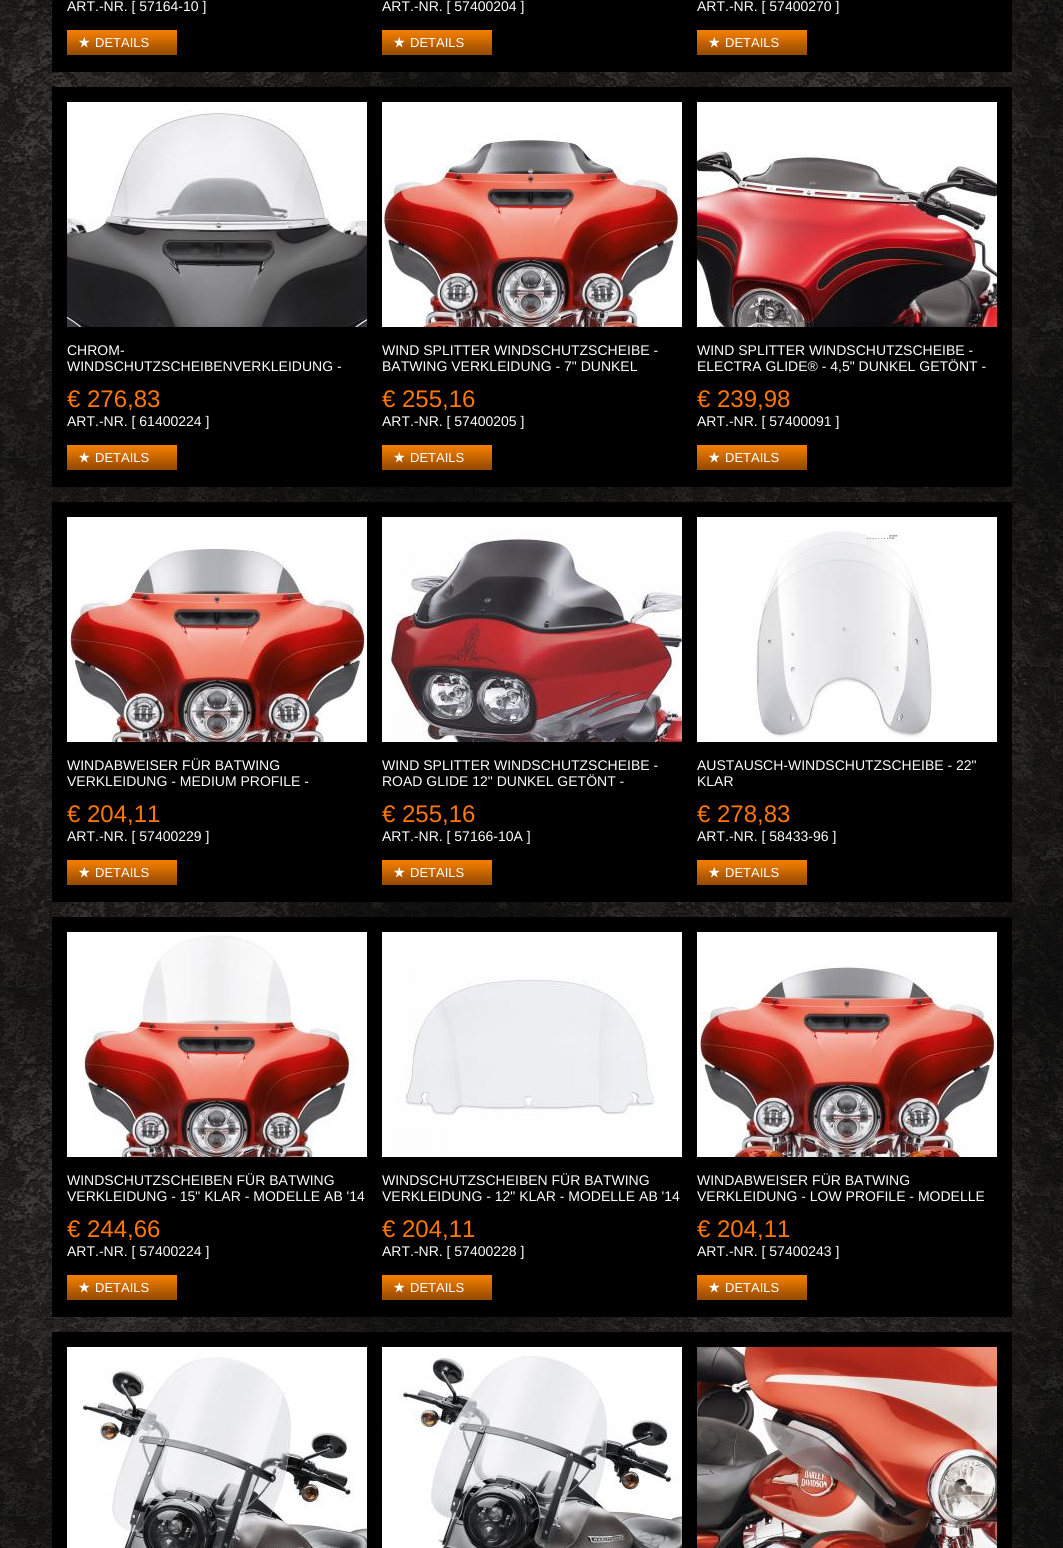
import math
import cairocffi as cairo

surface = cairo.ImageSurface(cairo.FORMAT_RGB24, 1063, 1548)
cr = cairo.Context(surface)
options = cairo.FontOptions()
options.set_hint_metrics(cairo.HINT_METRICS_OFF)
options.set_hint_style(cairo.HINT_STYLE_NONE)
cr.set_font_options(options)
cr.set_miter_limit(4)


def use_color(code):
    cr.set_source_rgb(*(v / 255 for v in bytes.fromhex(code[-6:])))


def picture(path, x, y, w, h):
    cr.save()
    cr.set_source_surface(cairo.ImageSurface.create_from_png(path), x, y)
    cr.rectangle(x, y, w, h)
    cr.fill()
    cr.restore()


use_color("#ffffff")
cr.paint()
picture("img1.png", 0, 0, 1063, 1548)
use_color("#000000")
cr.rectangle(52, 0, 960, 72)
cr.fill()
cr.select_font_face("Liberation Sans")
cr.set_font_size(14)
use_color("#ffffff")
cr.move_to(67, 11)
cr.show_text("ART.-NR. [ 57164-10 ]")
picture("img2.png", 67, 30, 110, 25)
picture("img3.png", 79, 37, 11, 11)
cr.set_font_size(13)
cr.move_to(95, 47)
cr.show_text("DETAILS")
cr.set_font_size(14)
cr.move_to(382, 11)
cr.show_text("ART.-NR. [ 57400204 ]")
picture("img2.png", 382, 30, 110, 25)
picture("img3.png", 394, 37, 11, 11)
cr.set_font_size(13)
cr.move_to(410, 47)
cr.show_text("DETAILS")
cr.set_font_size(14)
cr.move_to(697, 11)
cr.show_text("ART.-NR. [ 57400270 ]")
picture("img2.png", 697, 30, 110, 25)
picture("img3.png", 709, 37, 11, 11)
cr.set_font_size(13)
cr.move_to(725, 47)
cr.show_text("DETAILS")
use_color("#000000")
cr.rectangle(52, 87, 960, 400)
cr.fill()
picture("img4.png", 67, 102, 300, 225)
cr.set_font_size(14)
use_color("#ffffff")
cr.move_to(67, 355)
cr.show_text("CHROM-")
cr.move_to(67, 371)
cr.show_text("WINDSCHUTZSCHEIBENVERKLEIDUNG -")
cr.set_font_size(24)
use_color("#fe7700")
cr.move_to(67, 407)
cr.show_text("€ 276,83")
cr.set_font_size(14)
use_color("#ffffff")
cr.move_to(67, 426)
cr.show_text("ART.-NR. [ 61400224 ]")
picture("img2.png", 67, 445, 110, 25)
picture("img3.png", 79, 452, 11, 11)
cr.set_font_size(13)
cr.move_to(95, 462)
cr.show_text("DETAILS")
picture("img5.png", 382, 102, 300, 225)
cr.set_font_size(14)
cr.move_to(382, 355)
cr.show_text("WIND SPLITTER WINDSCHUTZSCHEIBE -")
cr.move_to(382, 371)
cr.show_text("BATWING VERKLEIDUNG - 7\" DUNKEL")
cr.set_font_size(24)
use_color("#fe7700")
cr.move_to(382, 407)
cr.show_text("€ 255,16")
cr.set_font_size(14)
use_color("#ffffff")
cr.move_to(382, 426)
cr.show_text("ART.-NR. [ 57400205 ]")
picture("img2.png", 382, 445, 110, 25)
picture("img3.png", 394, 452, 11, 11)
cr.set_font_size(13)
cr.move_to(410, 462)
cr.show_text("DETAILS")
picture("img6.png", 697, 102, 300, 225)
cr.set_font_size(14)
cr.move_to(697, 355)
cr.show_text("WIND SPLITTER WINDSCHUTZSCHEIBE -")
cr.move_to(697, 371)
cr.show_text("ELECTRA GLIDE® - 4,5\" DUNKEL GETÖNT -")
cr.set_font_size(24)
use_color("#fe7700")
cr.move_to(697, 407)
cr.show_text("€ 239,98")
cr.set_font_size(14)
use_color("#ffffff")
cr.move_to(697, 426)
cr.show_text("ART.-NR. [ 57400091 ]")
picture("img2.png", 697, 445, 110, 25)
picture("img3.png", 709, 452, 11, 11)
cr.set_font_size(13)
cr.move_to(725, 462)
cr.show_text("DETAILS")
use_color("#000000")
cr.rectangle(52, 502, 960, 400)
cr.fill()
picture("img7.png", 67, 517, 300, 225)
cr.set_font_size(14)
use_color("#ffffff")
cr.move_to(67, 770)
cr.show_text("WINDABWEISER FÜR BATWING")
cr.move_to(67, 786)
cr.show_text("VERKLEIDUNG - MEDIUM PROFILE -")
cr.set_font_size(24)
use_color("#fe7700")
cr.move_to(67, 822)
cr.show_text("€ 204,11")
cr.set_font_size(14)
use_color("#ffffff")
cr.move_to(67, 841)
cr.show_text("ART.-NR. [ 57400229 ]")
picture("img2.png", 67, 860, 110, 25)
picture("img3.png", 79, 867, 11, 11)
cr.set_font_size(13)
cr.move_to(95, 877)
cr.show_text("DETAILS")
picture("img8.png", 382, 517, 300, 225)
cr.set_font_size(14)
cr.move_to(382, 770)
cr.show_text("WIND SPLITTER WINDSCHUTZSCHEIBE -")
cr.move_to(382, 786)
cr.show_text("ROAD GLIDE 12\" DUNKEL GETÖNT -")
cr.set_font_size(24)
use_color("#fe7700")
cr.move_to(382, 822)
cr.show_text("€ 255,16")
cr.set_font_size(14)
use_color("#ffffff")
cr.move_to(382, 841)
cr.show_text("ART.-NR. [ 57166-10A ]")
picture("img2.png", 382, 860, 110, 25)
picture("img3.png", 394, 867, 11, 11)
cr.set_font_size(13)
cr.move_to(410, 877)
cr.show_text("DETAILS")
picture("img9.png", 697, 517, 300, 225)
cr.set_font_size(14)
cr.move_to(697, 770)
cr.show_text("AUSTAUSCH-WINDSCHUTZSCHEIBE - 22\"")
cr.move_to(697, 786)
cr.show_text("KLAR")
cr.set_font_size(24)
use_color("#fe7700")
cr.move_to(697, 822)
cr.show_text("€ 278,83")
cr.set_font_size(14)
use_color("#ffffff")
cr.move_to(697, 841)
cr.show_text("ART.-NR. [ 58433-96 ]")
picture("img2.png", 697, 860, 110, 25)
picture("img3.png", 709, 867, 11, 11)
cr.set_font_size(13)
cr.move_to(725, 877)
cr.show_text("DETAILS")
use_color("#000000")
cr.rectangle(52, 917, 960, 400)
cr.fill()
picture("img10.png", 67, 932, 300, 225)
cr.set_font_size(14)
use_color("#ffffff")
cr.move_to(67, 1185)
cr.show_text("WINDSCHUTZSCHEIBEN FÜR BATWING")
cr.move_to(67, 1201)
cr.show_text("VERKLEIDUNG - 15\" KLAR - MODELLE AB '14")
cr.set_font_size(24)
use_color("#fe7700")
cr.move_to(67, 1237)
cr.show_text("€ 244,66")
cr.set_font_size(14)
use_color("#ffffff")
cr.move_to(67, 1256)
cr.show_text("ART.-NR. [ 57400224 ]")
picture("img2.png", 67, 1275, 110, 25)
picture("img3.png", 79, 1282, 11, 11)
cr.set_font_size(13)
cr.move_to(95, 1292)
cr.show_text("DETAILS")
picture("img11.png", 382, 932, 300, 225)
cr.set_font_size(14)
cr.move_to(382, 1185)
cr.show_text("WINDSCHUTZSCHEIBEN FÜR BATWING")
cr.move_to(382, 1201)
cr.show_text("VERKLEIDUNG - 12\" KLAR - MODELLE AB '14")
cr.set_font_size(24)
use_color("#fe7700")
cr.move_to(382, 1237)
cr.show_text("€ 204,11")
cr.set_font_size(14)
use_color("#ffffff")
cr.move_to(382, 1256)
cr.show_text("ART.-NR. [ 57400228 ]")
picture("img2.png", 382, 1275, 110, 25)
picture("img3.png", 394, 1282, 11, 11)
cr.set_font_size(13)
cr.move_to(410, 1292)
cr.show_text("DETAILS")
picture("img12.png", 697, 932, 300, 225)
cr.set_font_size(14)
cr.move_to(697, 1185)
cr.show_text("WINDABWEISER FÜR BATWING")
cr.move_to(697, 1201)
cr.show_text("VERKLEIDUNG - LOW PROFILE - MODELLE")
cr.set_font_size(24)
use_color("#fe7700")
cr.move_to(697, 1237)
cr.show_text("€ 204,11")
cr.set_font_size(14)
use_color("#ffffff")
cr.move_to(697, 1256)
cr.show_text("ART.-NR. [ 57400243 ]")
picture("img2.png", 697, 1275, 110, 25)
picture("img3.png", 709, 1282, 11, 11)
cr.set_font_size(13)
cr.move_to(725, 1292)
cr.show_text("DETAILS")
use_color("#000000")
cr.rectangle(52, 1332, 960, 216)
cr.fill()
picture("img13.png", 67, 1347, 300, 201)
picture("img14.png", 382, 1347, 300, 201)
picture("img15.png", 697, 1347, 300, 201)
surface.write_to_png("result.png")
